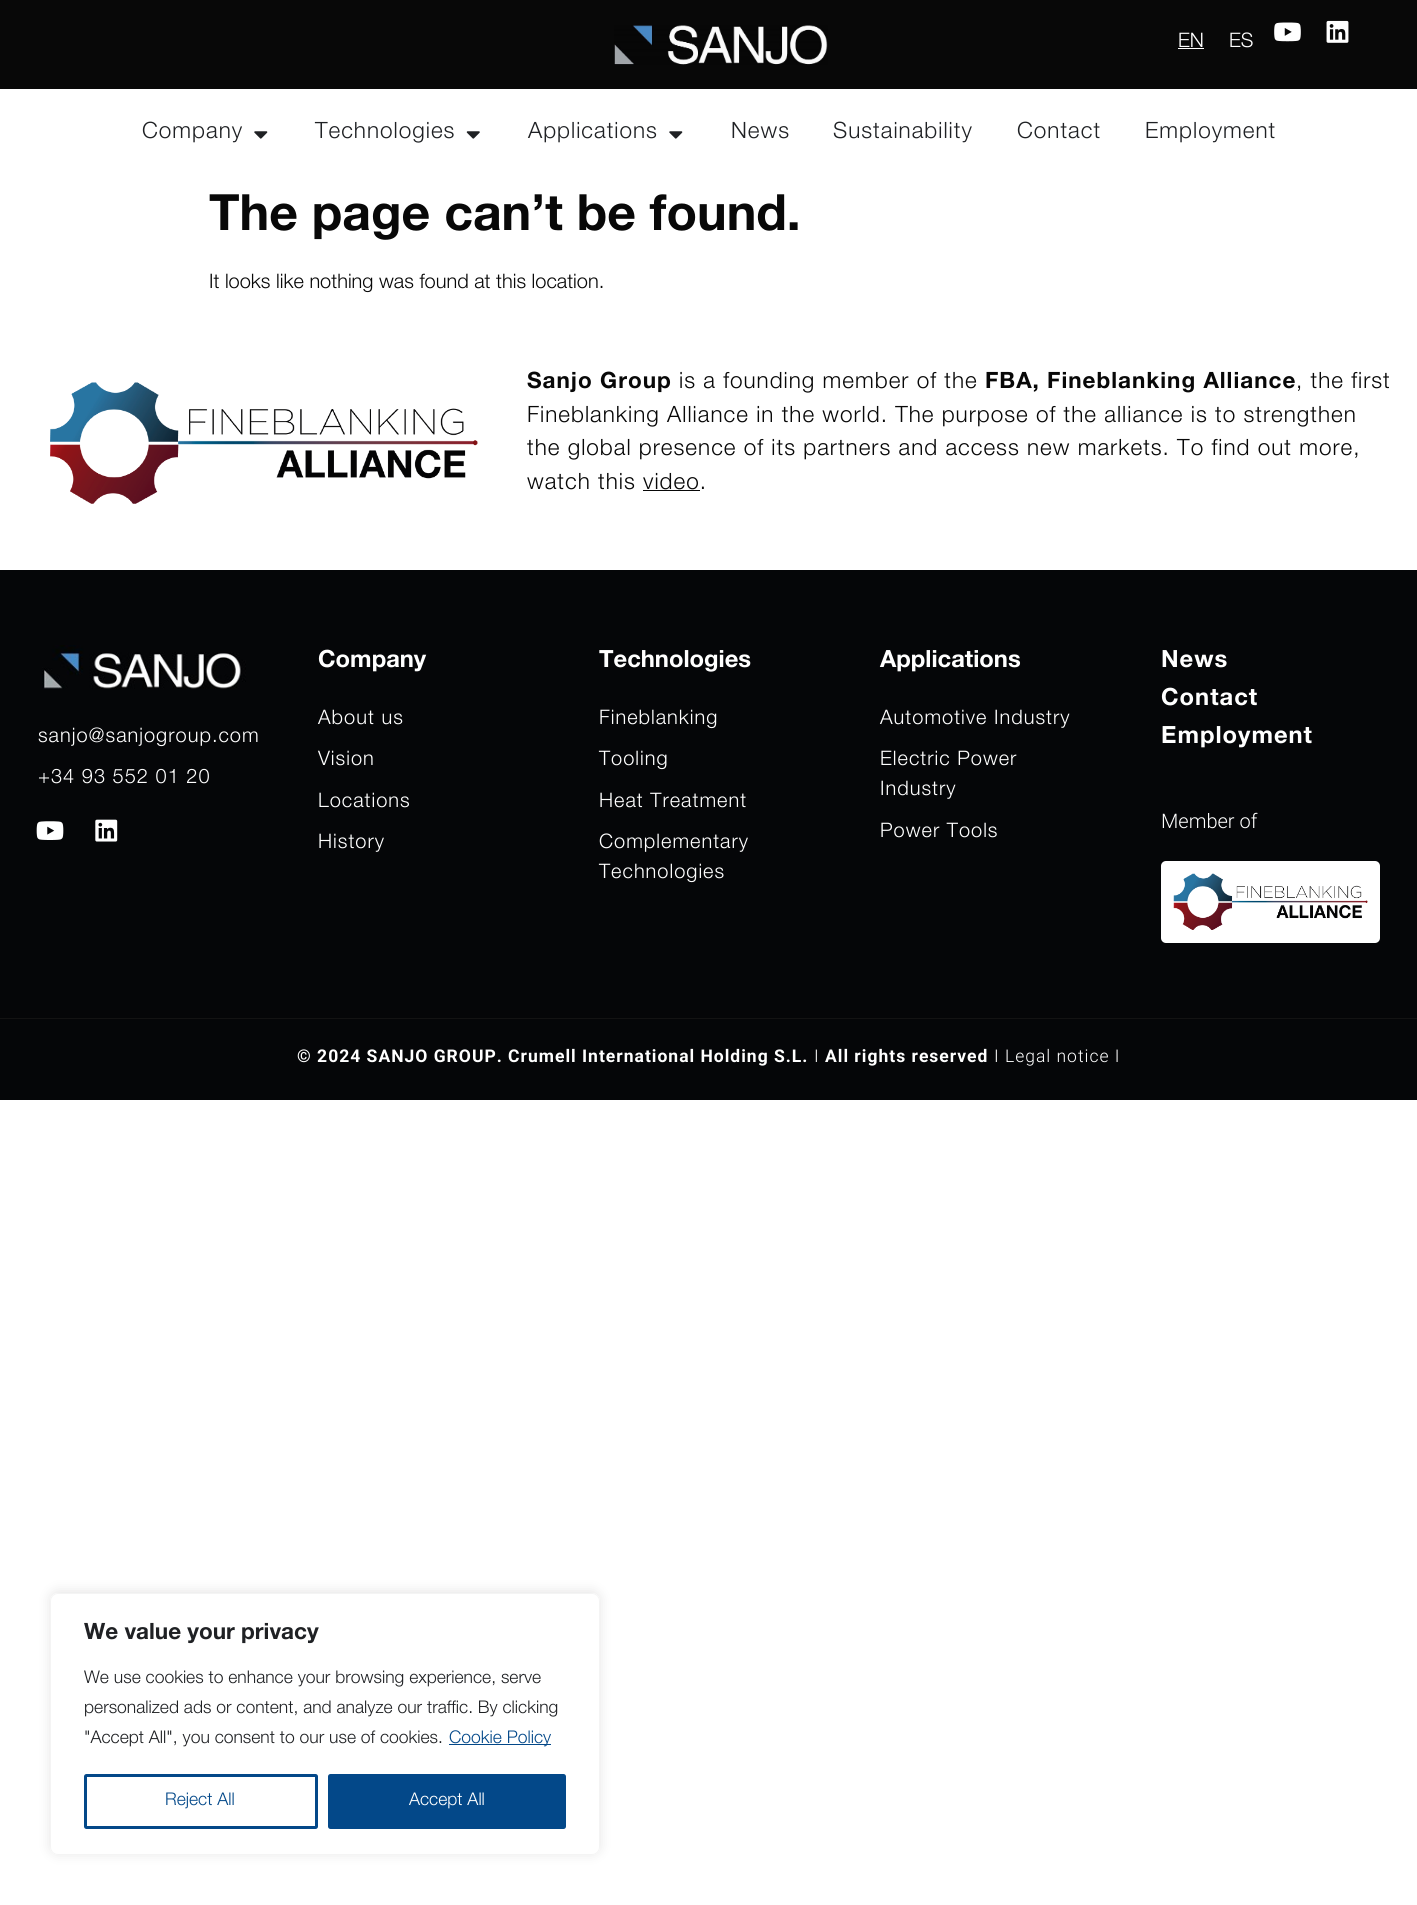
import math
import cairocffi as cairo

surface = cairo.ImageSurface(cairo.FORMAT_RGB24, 1417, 1905)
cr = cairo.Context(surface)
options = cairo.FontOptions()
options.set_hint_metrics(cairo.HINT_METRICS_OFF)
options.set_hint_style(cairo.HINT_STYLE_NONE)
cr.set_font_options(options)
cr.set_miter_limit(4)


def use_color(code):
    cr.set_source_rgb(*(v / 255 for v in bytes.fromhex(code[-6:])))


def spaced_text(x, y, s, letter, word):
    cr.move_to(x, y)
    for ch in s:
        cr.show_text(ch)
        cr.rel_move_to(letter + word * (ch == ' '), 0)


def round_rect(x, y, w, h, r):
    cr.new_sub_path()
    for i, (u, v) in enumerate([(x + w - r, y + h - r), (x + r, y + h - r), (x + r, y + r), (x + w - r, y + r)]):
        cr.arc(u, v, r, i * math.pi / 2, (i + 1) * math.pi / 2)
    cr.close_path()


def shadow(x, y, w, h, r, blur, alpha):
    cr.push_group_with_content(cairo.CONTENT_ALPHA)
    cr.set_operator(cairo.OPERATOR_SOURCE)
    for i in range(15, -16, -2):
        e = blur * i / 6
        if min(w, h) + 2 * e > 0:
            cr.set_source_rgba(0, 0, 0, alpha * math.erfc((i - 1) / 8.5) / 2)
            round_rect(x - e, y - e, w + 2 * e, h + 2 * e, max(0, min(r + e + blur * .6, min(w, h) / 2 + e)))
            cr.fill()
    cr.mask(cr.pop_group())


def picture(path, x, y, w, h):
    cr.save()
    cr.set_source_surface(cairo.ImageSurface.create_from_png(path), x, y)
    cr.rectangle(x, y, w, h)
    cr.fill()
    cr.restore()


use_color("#ffffff")
cr.paint()
use_color("#080808")
cr.rectangle(0, 0, 1417, 89)
cr.fill()
picture("img1.png", 614, 25, 214, 40)
cr.select_font_face("Helvetica Neue Light")
cr.set_font_size(20)
use_color("#ffffff")
cr.move_to(1178, 47)
cr.show_text("EN")
cr.rectangle(1178, 48, 26, 1)
cr.fill()
cr.move_to(1229, 47)
cr.show_text("ES")
picture("img2.png", 1274, 22, 27, 20)
picture("img3.png", 1326, 20, 23, 23)
cr.set_font_size(22.5)
use_color("#1f2124")
spaced_text(142, 138, "Company", 1, 0)
picture("img4.png", 254, 131, 14, 8)
spaced_text(315, 138, "Technologies", 1, 0)
picture("img5.png", 466, 131, 14, 8)
spaced_text(528, 138, "Applications", 1, 0)
picture("img4.png", 669, 131, 14, 8)
spaced_text(731, 138, "News", 1, 0)
spaced_text(833, 138, "Sustainability", 1, 0)
spaced_text(1017, 138, "Contact", 1, 0)
spaced_text(1145, 138, "Employment", 1, 0)
cr.select_font_face("Helvetica Neue", cairo.FONT_SLANT_NORMAL, cairo.FONT_WEIGHT_BOLD)
cr.set_font_size(50)
use_color("#080808")
cr.move_to(209, 230)
cr.show_text("The page can’t be found.")
cr.select_font_face("Helvetica Neue Light")
cr.set_font_size(20)
cr.move_to(209, 288)
cr.show_text("It looks like nothing was found at this location.")
picture("img6.png", 50, 382, 428, 122)
cr.select_font_face("Helvetica Neue", cairo.FONT_SLANT_NORMAL, cairo.FONT_WEIGHT_BOLD)
cr.set_font_size(22.5)
spaced_text(527, 388, "Sanjo Group", 1, 0)
cr.select_font_face("Helvetica Neue Light")
spaced_text(679, 388, "is a founding member of the", 1, 0)
cr.select_font_face("Helvetica Neue", cairo.FONT_SLANT_NORMAL, cairo.FONT_WEIGHT_BOLD)
spaced_text(985, 388, "FBA, Fineblanking Alliance", 1, 0)
cr.select_font_face("Helvetica Neue Light")
spaced_text(1296, 388, ", the first", 1, 0)
spaced_text(527, 422, "Fineblanking Alliance in the world. The purpose of the alliance is to strengthen", 1, 0)
spaced_text(527, 455, "the global presence of its partners and access new markets. To find out more,", 1, 0)
spaced_text(527, 489, "watch this video.", 1, 0)
cr.rectangle(643, 490, 57, 1)
cr.fill()
use_color("#050608")
cr.rectangle(0, 570, 1417, 448)
cr.fill()
picture("img7.png", 42, 645, 204, 44)
cr.set_font_size(20)
use_color("#ffffff")
spaced_text(38, 742, "sanjo@sanjogroup.com", 1, 0)
spaced_text(38, 783, "+34 93 552 01 20", 1, 0)
picture("img8.png", 36, 821, 28, 19)
picture("img9.png", 95, 819, 23, 23)
cr.select_font_face("Helvetica Neue", cairo.FONT_SLANT_NORMAL, cairo.FONT_WEIGHT_BOLD)
cr.set_font_size(23.75)
cr.move_to(318, 667)
cr.show_text("Company")
cr.select_font_face("Helvetica Neue Light")
cr.set_font_size(20)
spaced_text(318, 724, "About us", 1, 0)
spaced_text(318, 765, "Vision", 1, 0)
spaced_text(318, 807, "Locations", 1, 0)
spaced_text(318, 848, "History", 1, 0)
cr.select_font_face("Helvetica Neue", cairo.FONT_SLANT_NORMAL, cairo.FONT_WEIGHT_BOLD)
cr.set_font_size(23.75)
cr.move_to(599, 667)
cr.show_text("Technologies")
cr.select_font_face("Helvetica Neue Light")
cr.set_font_size(20)
spaced_text(599, 724, "Fineblanking", 1, 0)
spaced_text(599, 765, "Tooling", 1, 0)
spaced_text(599, 807, "Heat Treatment", 1, 0)
spaced_text(599, 848, "Complementary", 1, 0)
spaced_text(599, 878, "Technologies", 1, 0)
cr.select_font_face("Helvetica Neue", cairo.FONT_SLANT_NORMAL, cairo.FONT_WEIGHT_BOLD)
cr.set_font_size(23.75)
cr.move_to(880, 667)
cr.show_text("Applications")
cr.select_font_face("Helvetica Neue Light")
cr.set_font_size(20)
spaced_text(880, 724, "Automotive Industry", 1, 0)
spaced_text(880, 765, "Electric Power", 1, 0)
spaced_text(880, 795, "Industry", 1, 0)
spaced_text(880, 837, "Power Tools", 1, 0)
cr.select_font_face("Helvetica Neue", cairo.FONT_SLANT_NORMAL, cairo.FONT_WEIGHT_BOLD)
cr.set_font_size(23.75)
spaced_text(1161, 667, "News", 1, 0)
spaced_text(1161, 705, "Contact", 1, 0)
spaced_text(1161, 743, "Employment", 1, 0)
cr.select_font_face("Roboto Light")
cr.set_font_size(20)
cr.move_to(1161, 828)
cr.show_text("Member of")
round_rect(1161, 861, 219, 82, 5)
cr.fill()
picture("img10.png", 1173, 873, 195, 57)
use_color("#050608")
cr.rectangle(0, 1019, 1417, 81)
cr.fill()
use_color("#131313")
cr.rectangle(0, 1018, 1417, 1)
cr.fill()
cr.select_font_face("Roboto", cairo.FONT_SLANT_NORMAL, cairo.FONT_WEIGHT_BOLD)
cr.set_font_size(17.5)
use_color("#ffffff")
spaced_text(297, 1062, "© 2024 SANJO GROUP. Crumell International Holding S.L.", 1, 0)
cr.select_font_face("Roboto Light")
spaced_text(814, 1062, "I", 1, 0)
cr.select_font_face("Roboto", cairo.FONT_SLANT_NORMAL, cairo.FONT_WEIGHT_BOLD)
spaced_text(825, 1062, "All rights reserved", 1, 0)
cr.select_font_face("Roboto Light")
spaced_text(994, 1062, "I Legal notice I", 1, 0)
cr.save()
cr.set_fill_rule(cairo.FILL_RULE_EVEN_ODD)
cr.new_path()
cr.move_to(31, 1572)
cr.line_to(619, 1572)
cr.line_to(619, 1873)
cr.line_to(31, 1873)
cr.close_path()
cr.move_to(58, 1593)
cr.line_to(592, 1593)
cr.curve_to(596.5, 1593, 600, 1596.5, 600, 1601)
cr.line_to(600, 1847)
cr.curve_to(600, 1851.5, 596.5, 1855, 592, 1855)
cr.line_to(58, 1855)
cr.curve_to(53.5, 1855, 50, 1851.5, 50, 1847)
cr.line_to(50, 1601)
cr.curve_to(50, 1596.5, 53.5, 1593, 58, 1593)
cr.close_path()
cr.clip()
use_color("#acabab")
shadow(50, 1591, 550, 263, 8, 6, 0.3)
cr.restore()
round_rect(50.5, 1593.5, 549, 261, 7.5)
use_color("#f4f4f4")
cr.set_line_width(1)
cr.stroke()
cr.select_font_face("Helvetica Neue", cairo.FONT_SLANT_NORMAL, cairo.FONT_WEIGHT_BOLD)
cr.set_font_size(22.5)
use_color("#1f2124")
cr.move_to(84, 1639)
cr.show_text("We value your privacy")
cr.select_font_face("Helvetica Neue Light")
cr.set_font_size(17.5)
cr.move_to(84, 1683)
cr.show_text("We use cookies to enhance your browsing experience, serve")
cr.move_to(84, 1713)
cr.show_text("personalized ads or content, and analyze our traffic. By clicking")
cr.move_to(84, 1743)
cr.show_text("\"Accept All\", you consent to our use of cookies.")
use_color("#034889")
cr.rectangle(449, 1744, 102, 1)
cr.fill()
cr.move_to(449, 1743)
cr.show_text("Cookie Policy")
round_rect(85.5, 1775.5, 231, 52, 1)
cr.set_line_width(3)
cr.stroke()
cr.move_to(165, 1805)
cr.show_text("Reject All")
round_rect(329.5, 1775.5, 235, 52, 1)
cr.fill_preserve()
cr.stroke()
use_color("#ffffff")
cr.move_to(409, 1805)
cr.show_text("Accept All")
surface.write_to_png("result.png")
